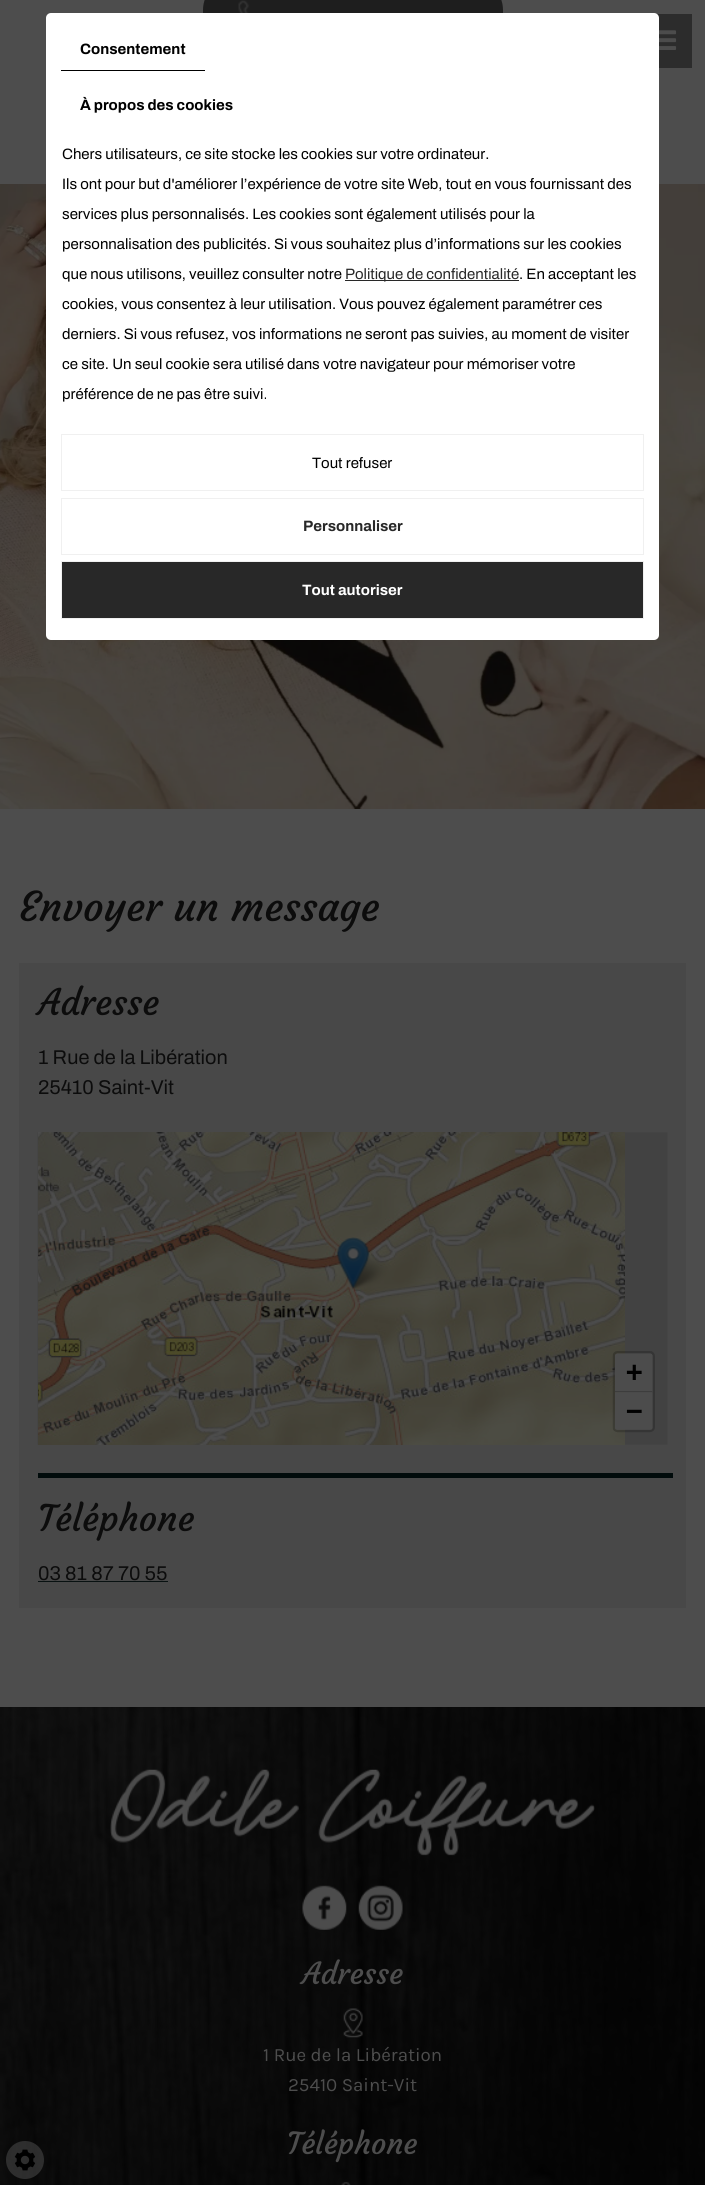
import math
import cairocffi as cairo

surface = cairo.ImageSurface(cairo.FORMAT_RGB24, 705, 2185)
cr = cairo.Context(surface)
options = cairo.FontOptions()
options.set_hint_metrics(cairo.HINT_METRICS_OFF)
options.set_hint_style(cairo.HINT_STYLE_NONE)
cr.set_font_options(options)
cr.set_miter_limit(4)


def use_color(code):
    cr.set_source_rgb(*(v / 255 for v in bytes.fromhex(code[-6:])))


def round_rect(x, y, w, h, r):
    cr.new_sub_path()
    for i, (u, v) in enumerate([(x + w - r, y + h - r), (x + r, y + h - r), (x + r, y + r), (x + w - r, y + r)]):
        cr.arc(u, v, r, i * math.pi / 2, (i + 1) * math.pi / 2)
    cr.close_path()


def picture(path, x, y, w, h):
    cr.save()
    cr.set_source_surface(cairo.ImageSurface.create_from_png(path), x, y)
    cr.rectangle(x, y, w, h)
    cr.fill()
    cr.restore()


use_color("#4d4d4d")
cr.paint()
use_color("#1e1e1e")
round_rect(203, -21, 300, 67, 31)
cr.fill()
picture("img2.png", 0, 184, 705, 625)
use_color("#2c2c2c")
cr.rectangle(657, 14, 35, 54)
cr.fill()
use_color("#ffffff")
round_rect(46, 13, 613, 627, 5)
cr.fill()
use_color("#000000")
cr.rectangle(61, 70, 144, 1)
cr.fill()
cr.select_font_face("Archivo", cairo.FONT_SLANT_NORMAL, cairo.FONT_WEIGHT_BOLD)
cr.set_font_size(15)
cr.move_to(80, 54)
cr.show_text("Consentement")
cr.move_to(80, 110)
cr.show_text("À propos des cookies")
cr.select_font_face("Archivo")
cr.move_to(62, 159)
cr.show_text("Chers utilisateurs, ce site stocke les cookies sur votre ordinateur.")
cr.move_to(62, 189)
cr.show_text("Ils ont pour but d'améliorer l’expérience de votre site Web, tout en vous fournissant des")
cr.move_to(62, 219)
cr.show_text("services plus personnalisés. Les cookies sont également utilisés pour la")
cr.move_to(62, 249)
cr.show_text("personnalisation des publicités. Si vous souhaitez plus d’informations sur les cookies")
cr.move_to(62, 279)
cr.show_text("que nous utilisons, veuillez consulter notre")
use_color("#282828")
cr.rectangle(345, 280, 174, 1)
cr.fill()
cr.move_to(345, 279)
cr.show_text("Politique de confidentialité")
use_color("#000000")
cr.move_to(519, 279)
cr.show_text(". En acceptant les")
cr.move_to(62, 309)
cr.show_text("cookies, vous consentez à leur utilisation. Vous pouvez également paramétrer ces")
cr.move_to(62, 339)
cr.show_text("derniers. Si vous refusez, vos informations ne seront pas suivies, au moment de visiter")
cr.move_to(62, 369)
cr.show_text("ce site. Un seul cookie sera utilisé dans votre navigateur pour mémoriser votre")
cr.move_to(62, 399)
cr.show_text("préférence de ne pas être suivi.")
cr.rectangle(61.5, 434.5, 582, 56)
use_color("#f0f0f0")
cr.set_line_width(1)
cr.stroke()
use_color("#000000")
cr.move_to(312, 468)
cr.show_text("Tout refuser")
cr.rectangle(61.5, 498.5, 582, 56)
use_color("#f0f0f0")
cr.stroke()
cr.select_font_face("Archivo", cairo.FONT_SLANT_NORMAL, cairo.FONT_WEIGHT_BOLD)
use_color("#282828")
cr.move_to(303, 531)
cr.show_text("Personnaliser")
cr.rectangle(61.5, 561.5, 582, 57)
cr.fill_preserve()
use_color("#f0f0f0")
cr.stroke()
use_color("#ffffff")
cr.move_to(302, 595)
cr.show_text("Tout autoriser")
picture("img1.png", 238, 0, 12, 13)
picture("img3.png", 659, 30, 18, 20)
cr.select_font_face("Courgette")
cr.set_font_size(40.4)
use_color("#0c0c0c")
cr.move_to(19, 921)
cr.show_text("Envoyer un message")
use_color("#484848")
cr.rectangle(19, 963, 667, 645)
cr.fill()
cr.set_font_size(36)
use_color("#0c0c0c")
cr.move_to(38, 1015)
cr.show_text("Adresse")
cr.select_font_face("Archivo")
cr.set_font_size(20)
cr.move_to(38, 1064)
cr.show_text("1 Rue de la Libération")
cr.move_to(38, 1094)
cr.show_text("25410 Saint-Vit")
picture("img4.png", 37, 1132, 631, 313)
use_color("#010b0b")
cr.rectangle(38, 1473, 635, 5)
cr.fill()
cr.select_font_face("Courgette")
cr.set_font_size(36)
use_color("#0c0c0c")
cr.move_to(38, 1531)
cr.show_text("Téléphone")
cr.select_font_face("Archivo")
cr.set_font_size(20)
cr.move_to(38, 1580)
cr.show_text("03 81 87 70 55")
use_color("#081111")
cr.rectangle(38, 1581, 130, 1)
cr.fill()
picture("img5.png", 0, 1707, 705, 478)
picture("img6.png", 110, 1769, 485, 87)
picture("img7.png", 302, 1885, 45, 45)
picture("img8.png", 358, 1885, 45, 45)
cr.select_font_face("Courgette")
cr.set_font_size(30)
use_color("#4d4d4d")
cr.move_to(302, 1984)
cr.show_text("Adresse")
picture("img9.png", 343, 2008, 20, 30)
cr.select_font_face("Karla")
cr.set_font_size(18.75)
cr.move_to(263, 2061)
cr.show_text("1 Rue de la Libération")
cr.move_to(288, 2091)
cr.show_text("25410 Saint-Vit")
cr.select_font_face("Courgette")
cr.set_font_size(30)
cr.move_to(287, 2154)
cr.show_text("Téléphone")
picture("img10.png", 341, 2182, 10, 3)
cr.set_source_rgba(0.302, 0.302, 0.302, 0.54)
cr.arc(25, 2160, 19, 0, 2 * math.pi)
cr.fill()
picture("img11.png", 14, 2149, 22, 22)
surface.write_to_png("result.png")
